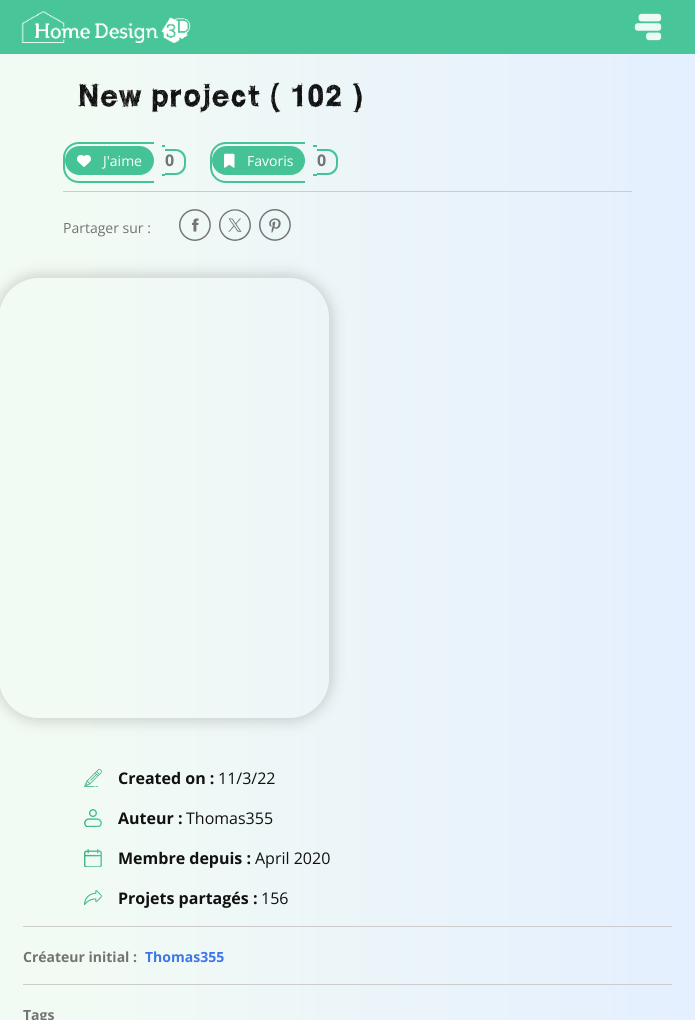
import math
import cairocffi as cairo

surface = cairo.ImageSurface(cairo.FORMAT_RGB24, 695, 1020)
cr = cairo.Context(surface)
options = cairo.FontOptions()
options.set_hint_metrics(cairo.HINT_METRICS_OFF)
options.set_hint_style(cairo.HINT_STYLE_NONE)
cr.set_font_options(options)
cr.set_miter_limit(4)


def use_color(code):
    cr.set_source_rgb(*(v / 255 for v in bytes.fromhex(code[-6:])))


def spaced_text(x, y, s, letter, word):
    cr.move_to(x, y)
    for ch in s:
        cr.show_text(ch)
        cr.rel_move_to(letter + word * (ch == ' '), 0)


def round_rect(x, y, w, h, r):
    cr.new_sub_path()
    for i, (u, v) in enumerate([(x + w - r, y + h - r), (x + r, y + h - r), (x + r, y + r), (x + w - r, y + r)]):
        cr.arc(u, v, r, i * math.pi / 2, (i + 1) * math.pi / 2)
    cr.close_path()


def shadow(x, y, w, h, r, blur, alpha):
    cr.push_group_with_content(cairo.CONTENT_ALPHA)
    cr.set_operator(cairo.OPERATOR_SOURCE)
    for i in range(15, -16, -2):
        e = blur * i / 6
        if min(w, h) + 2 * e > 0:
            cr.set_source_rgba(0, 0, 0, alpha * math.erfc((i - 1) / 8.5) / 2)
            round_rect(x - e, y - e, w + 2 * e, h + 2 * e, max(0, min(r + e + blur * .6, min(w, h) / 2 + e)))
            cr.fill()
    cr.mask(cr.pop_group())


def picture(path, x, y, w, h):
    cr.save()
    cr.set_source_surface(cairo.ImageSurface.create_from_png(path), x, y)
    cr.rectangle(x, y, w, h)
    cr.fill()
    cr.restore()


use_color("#ffffff")
cr.paint()
use_color("#49c699")
cr.rectangle(0, 0, 695, 54)
cr.fill()
picture("img1.png", 21, 10, 170, 33)
picture("img2.png", 634, 13, 28, 28)
gradient = cairo.LinearGradient(0, 580, 695, 580)
gradient.add_color_stop_rgba(0.1, 0.949, 0.984, 0.953, 1)
gradient.add_color_stop_rgba(1, 0.894, 0.937, 1, 1)
cr.set_source(gradient)
cr.rectangle(0, 54, 695, 966)
cr.fill()
cr.select_font_face("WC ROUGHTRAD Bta")
cr.set_font_size(30)
use_color("#111111")
spaced_text(78, 106, "New project ( 102 )", 1, 0)
use_color("#46c396")
cr.set_fill_rule(cairo.FILL_RULE_EVEN_ODD)
cr.new_path()
cr.move_to(79, 142)
cr.line_to(154, 142)
cr.line_to(154, 183)
cr.line_to(79, 183)
cr.curve_to(70, 183, 63, 176, 63, 167)
cr.line_to(63, 158)
cr.curve_to(63, 149, 70, 142, 79, 142)
cr.close_path()
cr.move_to(79, 144)
cr.line_to(154, 144)
cr.line_to(154, 181)
cr.line_to(79, 181)
cr.curve_to(71, 181, 65, 175, 65, 167)
cr.line_to(65, 158)
cr.curve_to(65, 150, 71, 144, 79, 144)
cr.close_path()
cr.fill()
cr.rectangle(162, 145, 3, 2)
cr.fill()
cr.rectangle(162, 174, 3, 2)
cr.fill()
cr.new_path()
cr.move_to(165, 149)
cr.line_to(175.5, 149)
cr.curve_to(181.5, 149, 186, 153.5, 186, 159.5)
cr.line_to(186, 164.5)
cr.curve_to(186, 170.5, 181.5, 175, 175.5, 175)
cr.line_to(165, 175)
cr.close_path()
cr.move_to(165, 151)
cr.line_to(175.5, 151)
cr.curve_to(180, 151, 184, 155, 184, 159.5)
cr.line_to(184, 164.5)
cr.curve_to(184, 169, 180, 173, 175.5, 173)
cr.line_to(165, 173)
cr.close_path()
cr.fill()
round_rect(65, 146, 89, 29, 14.5)
cr.fill()
picture("img3.png", 77, 154, 14, 13)
cr.select_font_face("Open Sans")
cr.set_font_size(14)
use_color("#ffffff")
cr.move_to(103, 166)
cr.show_text("J'aime")
cr.select_font_face("Open Sans", cairo.FONT_SLANT_NORMAL, cairo.FONT_WEIGHT_BOLD)
cr.set_font_size(16)
use_color("#737373")
cr.move_to(165, 166)
cr.show_text("0")
use_color("#46c396")
cr.new_path()
cr.move_to(226, 142)
cr.line_to(305, 142)
cr.line_to(305, 183)
cr.line_to(226, 183)
cr.curve_to(217, 183, 210, 176, 210, 167)
cr.line_to(210, 158)
cr.curve_to(210, 149, 217, 142, 226, 142)
cr.close_path()
cr.move_to(226, 144)
cr.line_to(305, 144)
cr.line_to(305, 181)
cr.line_to(226, 181)
cr.curve_to(218, 181, 212, 175, 212, 167)
cr.line_to(212, 158)
cr.curve_to(212, 150, 218, 144, 226, 144)
cr.close_path()
cr.fill()
cr.rectangle(313, 145, 4, 2)
cr.fill()
cr.rectangle(313, 174, 4, 2)
cr.fill()
cr.new_path()
cr.move_to(317, 149)
cr.line_to(327.5, 149)
cr.curve_to(333.5, 149, 338, 153.5, 338, 159.5)
cr.line_to(338, 164.5)
cr.curve_to(338, 170.5, 333.5, 175, 327.5, 175)
cr.line_to(317, 175)
cr.close_path()
cr.move_to(317, 151)
cr.line_to(327.5, 151)
cr.curve_to(332, 151, 336, 155, 336, 159.5)
cr.line_to(336, 164.5)
cr.curve_to(336, 169, 332, 173, 327.5, 173)
cr.line_to(317, 173)
cr.close_path()
cr.fill()
round_rect(212, 146, 93, 29, 14.5)
cr.fill()
picture("img4.png", 224, 153, 11, 15)
cr.select_font_face("Open Sans")
cr.set_font_size(14)
use_color("#ffffff")
cr.move_to(247, 166)
cr.show_text("Favoris")
cr.select_font_face("Open Sans", cairo.FONT_SLANT_NORMAL, cairo.FONT_WEIGHT_BOLD)
cr.set_font_size(16)
use_color("#737373")
cr.move_to(317, 166)
cr.show_text("0")
use_color("#cccccc")
cr.rectangle(63, 191, 569, 1)
cr.fill()
cr.select_font_face("Open Sans")
cr.set_font_size(14)
use_color("#737373")
cr.move_to(63, 233)
cr.show_text("Partager sur :")
picture("img5.png", 179, 209, 32, 32)
picture("img6.png", 219, 209, 32, 32)
picture("img7.png", 259, 209, 32, 32)
cr.save()
cr.new_path()
cr.move_to(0, 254)
cr.line_to(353, 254)
cr.line_to(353, 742)
cr.line_to(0, 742)
cr.close_path()
cr.move_to(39, 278)
cr.line_to(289, 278)
cr.curve_to(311, 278, 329, 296, 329, 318)
cr.line_to(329, 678)
cr.curve_to(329, 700, 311, 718, 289, 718)
cr.line_to(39, 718)
cr.curve_to(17, 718, -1, 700, -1, 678)
cr.line_to(-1, 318)
cr.curve_to(-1, 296, 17, 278, 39, 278)
cr.close_path()
cr.clip()
use_color("#6f6f6f")
shadow(-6, 273, 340, 450, 45, 6, 0.25)
cr.restore()
picture("img8.png", 84, 769, 18, 18)
cr.select_font_face("Open Sans", cairo.FONT_SLANT_NORMAL, cairo.FONT_WEIGHT_BOLD)
cr.set_font_size(16)
use_color("#111111")
cr.move_to(118, 784)
cr.show_text("Created on :")
cr.select_font_face("Open Sans")
cr.move_to(218, 784)
cr.show_text("11/3/22")
picture("img9.png", 84, 809, 18, 18)
cr.select_font_face("Open Sans", cairo.FONT_SLANT_NORMAL, cairo.FONT_WEIGHT_BOLD)
cr.move_to(118, 824)
cr.show_text("Auteur :")
cr.select_font_face("Open Sans")
cr.move_to(186, 824)
cr.show_text("Thomas355")
picture("img10.png", 84, 849, 18, 18)
cr.select_font_face("Open Sans", cairo.FONT_SLANT_NORMAL, cairo.FONT_WEIGHT_BOLD)
cr.move_to(118, 864)
cr.show_text("Membre depuis :")
cr.select_font_face("Open Sans")
cr.move_to(255, 864)
cr.show_text("April 2020")
picture("img11.png", 84, 890, 18, 15)
cr.select_font_face("Open Sans", cairo.FONT_SLANT_NORMAL, cairo.FONT_WEIGHT_BOLD)
cr.move_to(118, 904)
cr.show_text("Projets partagés :")
cr.select_font_face("Open Sans")
cr.move_to(261, 904)
cr.show_text("156")
use_color("#cccccc")
cr.rectangle(23, 926, 649, 1)
cr.fill()
cr.select_font_face("Open Sans", cairo.FONT_SLANT_NORMAL, cairo.FONT_WEIGHT_BOLD)
cr.set_font_size(14)
use_color("#737373")
cr.move_to(23, 962)
cr.show_text("Créateur initial :")
use_color("#3c76e8")
cr.move_to(145, 962)
cr.show_text("Thomas355")
use_color("#cccccc")
cr.rectangle(23, 984, 649, 1)
cr.fill()
use_color("#737373")
cr.move_to(23, 1020)
cr.show_text("Tags")
surface.write_to_png("result.png")
